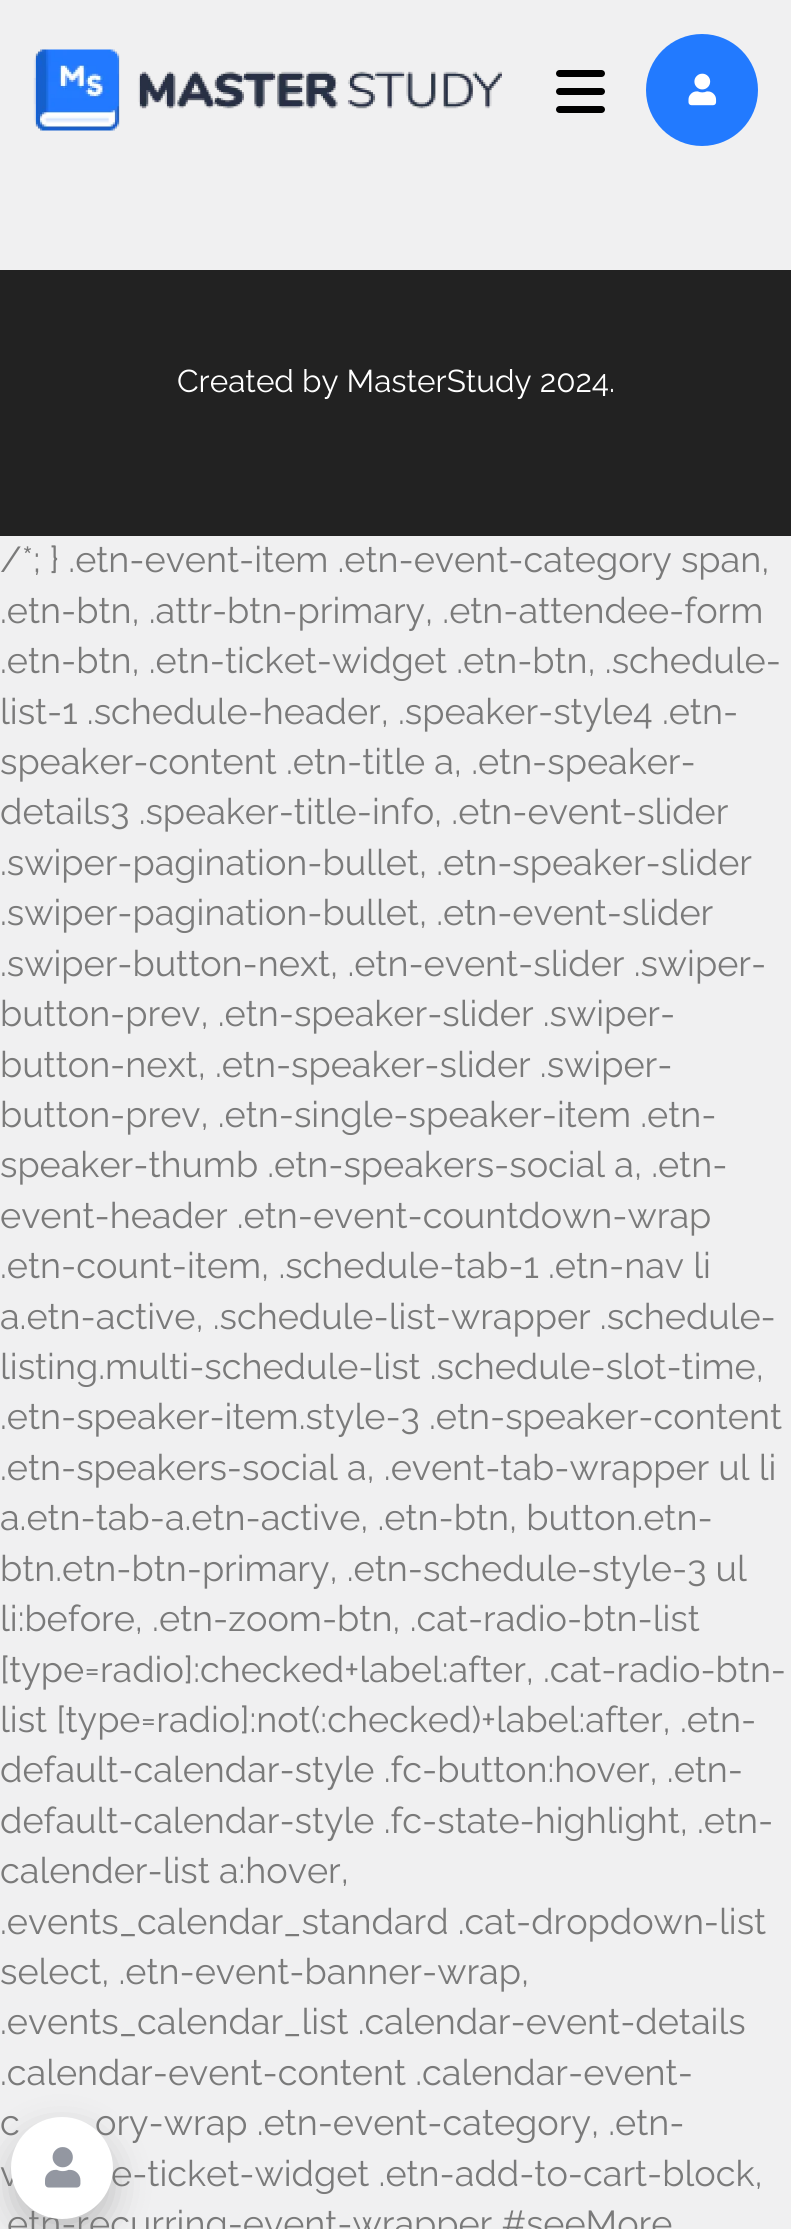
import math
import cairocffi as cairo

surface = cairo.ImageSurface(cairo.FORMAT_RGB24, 791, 2229)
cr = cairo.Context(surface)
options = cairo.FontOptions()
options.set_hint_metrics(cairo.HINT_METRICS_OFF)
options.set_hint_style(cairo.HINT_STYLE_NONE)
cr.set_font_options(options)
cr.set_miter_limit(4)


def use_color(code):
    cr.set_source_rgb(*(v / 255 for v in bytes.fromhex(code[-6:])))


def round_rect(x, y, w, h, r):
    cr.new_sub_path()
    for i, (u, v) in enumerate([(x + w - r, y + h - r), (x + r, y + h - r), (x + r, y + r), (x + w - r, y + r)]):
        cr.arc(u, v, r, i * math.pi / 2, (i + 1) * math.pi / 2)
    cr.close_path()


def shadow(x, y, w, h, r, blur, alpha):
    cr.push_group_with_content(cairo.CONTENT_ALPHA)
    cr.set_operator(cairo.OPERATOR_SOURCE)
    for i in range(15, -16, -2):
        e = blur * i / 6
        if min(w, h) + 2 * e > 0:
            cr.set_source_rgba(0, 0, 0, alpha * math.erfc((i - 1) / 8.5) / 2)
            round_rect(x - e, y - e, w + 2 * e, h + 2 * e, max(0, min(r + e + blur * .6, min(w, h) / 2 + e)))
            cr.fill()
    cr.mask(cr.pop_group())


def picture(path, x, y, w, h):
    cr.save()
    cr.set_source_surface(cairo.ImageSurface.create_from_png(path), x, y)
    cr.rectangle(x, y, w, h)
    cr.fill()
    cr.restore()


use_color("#f0f0f1")
cr.paint()
picture("img1.png", 33, 49, 469, 82)
use_color("#000000")
round_rect(556, 70, 49, 7, 3.5)
cr.fill()
round_rect(556, 88, 49, 7, 3.5)
cr.fill()
round_rect(556, 106, 49, 7, 3.5)
cr.fill()
use_color("#227aff")
cr.arc(702, 90, 56, 0, 2 * math.pi)
cr.fill()
picture("img2.png", 688, 73, 29, 33)
use_color("#222222")
cr.rectangle(0, 270, 791, 266)
cr.fill()
cr.select_font_face("Raleway")
cr.set_font_size(31.5)
use_color("#ffffff")
cr.move_to(177, 392)
cr.show_text("Created by MasterStudy 2024.")
cr.set_font_size(36)
use_color("#7a7a7a")
cr.move_to(0, 572)
cr.show_text("/*; } .etn-event-item .etn-event-category span,")
cr.move_to(0, 623)
cr.show_text(".etn-btn, .attr-btn-primary, .etn-attendee-form")
cr.move_to(0, 673)
cr.show_text(".etn-btn, .etn-ticket-widget .etn-btn, .schedule-")
cr.move_to(0, 724)
cr.show_text("list-1 .schedule-header, .speaker-style4 .etn-")
cr.move_to(0, 774)
cr.show_text("speaker-content .etn-title a, .etn-speaker-")
cr.move_to(0, 824)
cr.show_text("details3 .speaker-title-info, .etn-event-slider")
cr.move_to(0, 875)
cr.show_text(".swiper-pagination-bullet, .etn-speaker-slider")
cr.move_to(0, 925)
cr.show_text(".swiper-pagination-bullet, .etn-event-slider")
cr.move_to(0, 976)
cr.show_text(".swiper-button-next, .etn-event-slider .swiper-")
cr.move_to(0, 1026)
cr.show_text("button-prev, .etn-speaker-slider .swiper-")
cr.move_to(0, 1077)
cr.show_text("button-next, .etn-speaker-slider .swiper-")
cr.move_to(0, 1127)
cr.show_text("button-prev, .etn-single-speaker-item .etn-")
cr.move_to(0, 1177)
cr.show_text("speaker-thumb .etn-speakers-social a, .etn-")
cr.move_to(0, 1228)
cr.show_text("event-header .etn-event-countdown-wrap")
cr.move_to(0, 1278)
cr.show_text(".etn-count-item, .schedule-tab-1 .etn-nav li")
cr.move_to(0, 1329)
cr.show_text("a.etn-active, .schedule-list-wrapper .schedule-")
cr.move_to(0, 1379)
cr.show_text("listing.multi-schedule-list .schedule-slot-time,")
cr.move_to(0, 1429)
cr.show_text(".etn-speaker-item.style-3 .etn-speaker-content")
cr.move_to(0, 1480)
cr.show_text(".etn-speakers-social a, .event-tab-wrapper ul li")
cr.move_to(0, 1530)
cr.show_text("a.etn-tab-a.etn-active, .etn-btn, button.etn-")
cr.move_to(0, 1581)
cr.show_text("btn.etn-btn-primary, .etn-schedule-style-3 ul")
cr.move_to(0, 1631)
cr.show_text("li:before, .etn-zoom-btn, .cat-radio-btn-list")
cr.move_to(0, 1682)
cr.show_text("[type=radio]:checked+label:after, .cat-radio-btn-")
cr.move_to(0, 1732)
cr.show_text("list [type=radio]:not(:checked)+label:after, .etn-")
cr.move_to(0, 1782)
cr.show_text("default-calendar-style .fc-button:hover, .etn-")
cr.move_to(0, 1833)
cr.show_text("default-calendar-style .fc-state-highlight, .etn-")
cr.move_to(0, 1883)
cr.show_text("calender-list a:hover,")
cr.move_to(0, 1934)
cr.show_text(".events_calendar_standard .cat-dropdown-list")
cr.move_to(0, 1984)
cr.show_text("select, .etn-event-banner-wrap,")
cr.move_to(0, 2034)
cr.show_text(".events_calendar_list .calendar-event-details")
cr.move_to(0, 2085)
cr.show_text(".calendar-event-content .calendar-event-")
use_color("#000000")
shadow(11, 2133, 102, 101, 50.5, 18, 0.2)
use_color("#7a7a7a")
cr.move_to(95, 2135)
cr.show_text("ory-wrap .etn-event-category, .etn-")
cr.move_to(0, 2135)
cr.show_text("c")
cr.move_to(0, 2186)
cr.show_text("v")
cr.move_to(111, 2186)
cr.show_text("e-ticket-widget .etn-add-to-cart-block,")
cr.move_to(7, 2236)
cr.show_text("etn-recurring-event-wrapper #seeMore")
use_color("#ffffff")
cr.new_path()
cr.arc(62, 2168, 48.5, 0, 2 * math.pi)
cr.fill_preserve()
cr.set_line_width(5)
cr.stroke()
picture("img3.png", 45, 2147, 36, 41)
surface.write_to_png("result.png")
